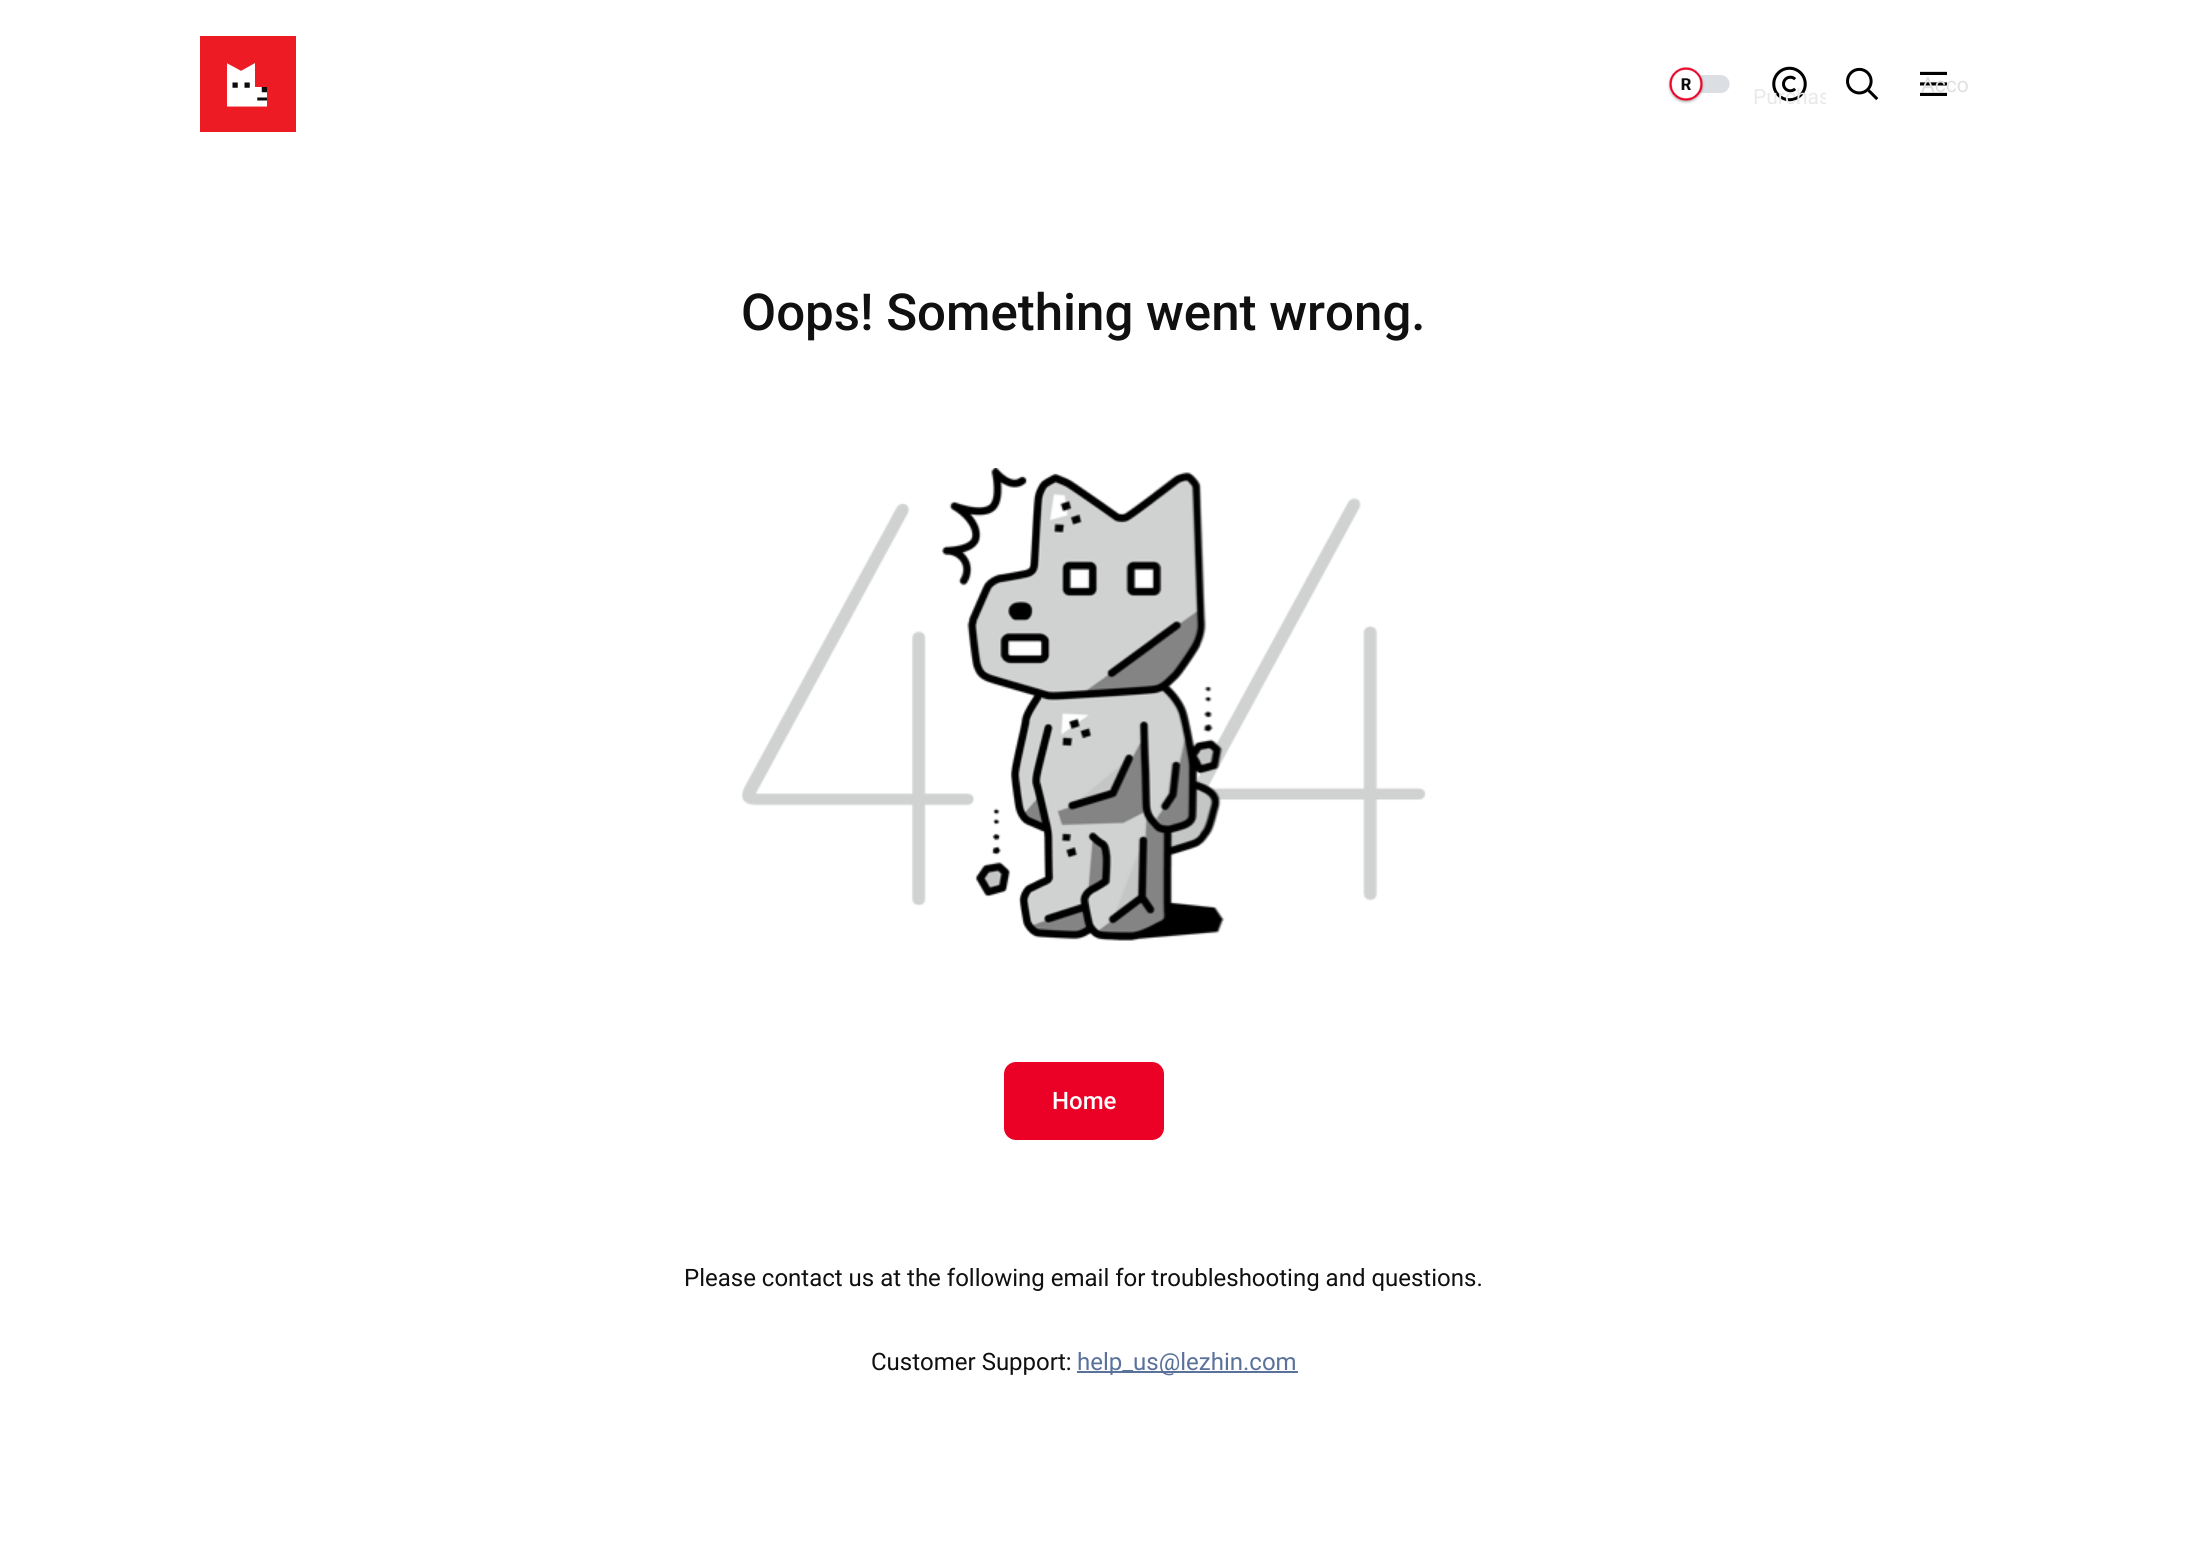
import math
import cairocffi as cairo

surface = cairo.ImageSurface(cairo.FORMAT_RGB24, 2190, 1557)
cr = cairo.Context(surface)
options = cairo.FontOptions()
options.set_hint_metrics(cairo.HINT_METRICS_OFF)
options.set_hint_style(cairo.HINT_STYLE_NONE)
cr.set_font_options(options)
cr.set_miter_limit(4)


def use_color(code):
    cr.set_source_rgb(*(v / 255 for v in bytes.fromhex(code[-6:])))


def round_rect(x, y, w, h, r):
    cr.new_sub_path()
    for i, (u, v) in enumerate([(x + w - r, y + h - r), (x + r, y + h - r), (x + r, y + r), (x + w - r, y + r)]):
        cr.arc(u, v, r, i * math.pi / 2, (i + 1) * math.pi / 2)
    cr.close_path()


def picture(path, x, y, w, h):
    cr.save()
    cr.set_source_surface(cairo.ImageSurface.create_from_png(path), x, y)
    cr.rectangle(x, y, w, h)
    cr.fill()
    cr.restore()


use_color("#ffffff")
cr.paint()
use_color("#ed1c24")
cr.rectangle(200, 36, 96, 96)
cr.fill()
picture("img1.png", 227, 63, 40, 44)
picture("img2.png", 1667, 67, 63, 37)
picture("img3.png", 1846, 67, 33, 34)
picture("img4.png", 1920, 71, 27, 25)
cr.select_font_face("Roboto")
cr.set_font_size(21)
use_color("#e0e0e0")
cr.move_to(1921, 92)
cr.show_text("Acco")
picture("img5.png", 1772, 66, 35, 36)
cr.save()
cr.rectangle(1754, 48, 72, 72)
cr.clip()
use_color("#e9e9e9")
cr.move_to(1753, 104)
cr.show_text("Purchas")
cr.restore()
cr.select_font_face("Roboto Medium")
cr.set_font_size(51)
use_color("#101010")
cr.move_to(741, 330)
cr.show_text("Oops! Something went wrong.")
picture("img6.png", 741, 468, 685, 473)
use_color("#eb0026")
round_rect(1004, 1062, 160, 78, 12)
cr.fill()
cr.set_font_size(24)
use_color("#ffffff")
cr.move_to(1052, 1109)
cr.show_text("Home")
cr.select_font_face("Roboto")
use_color("#101010")
cr.move_to(684, 1286)
cr.show_text("Please contact us at the following email for troubleshooting and questions.")
cr.move_to(871, 1370)
cr.show_text("Customer Support:")
use_color("#5a719a")
cr.rectangle(1077, 1371, 221, 2)
cr.fill()
cr.move_to(1077, 1370)
cr.show_text("help_us@lezhin.com")
surface.write_to_png("result.png")
